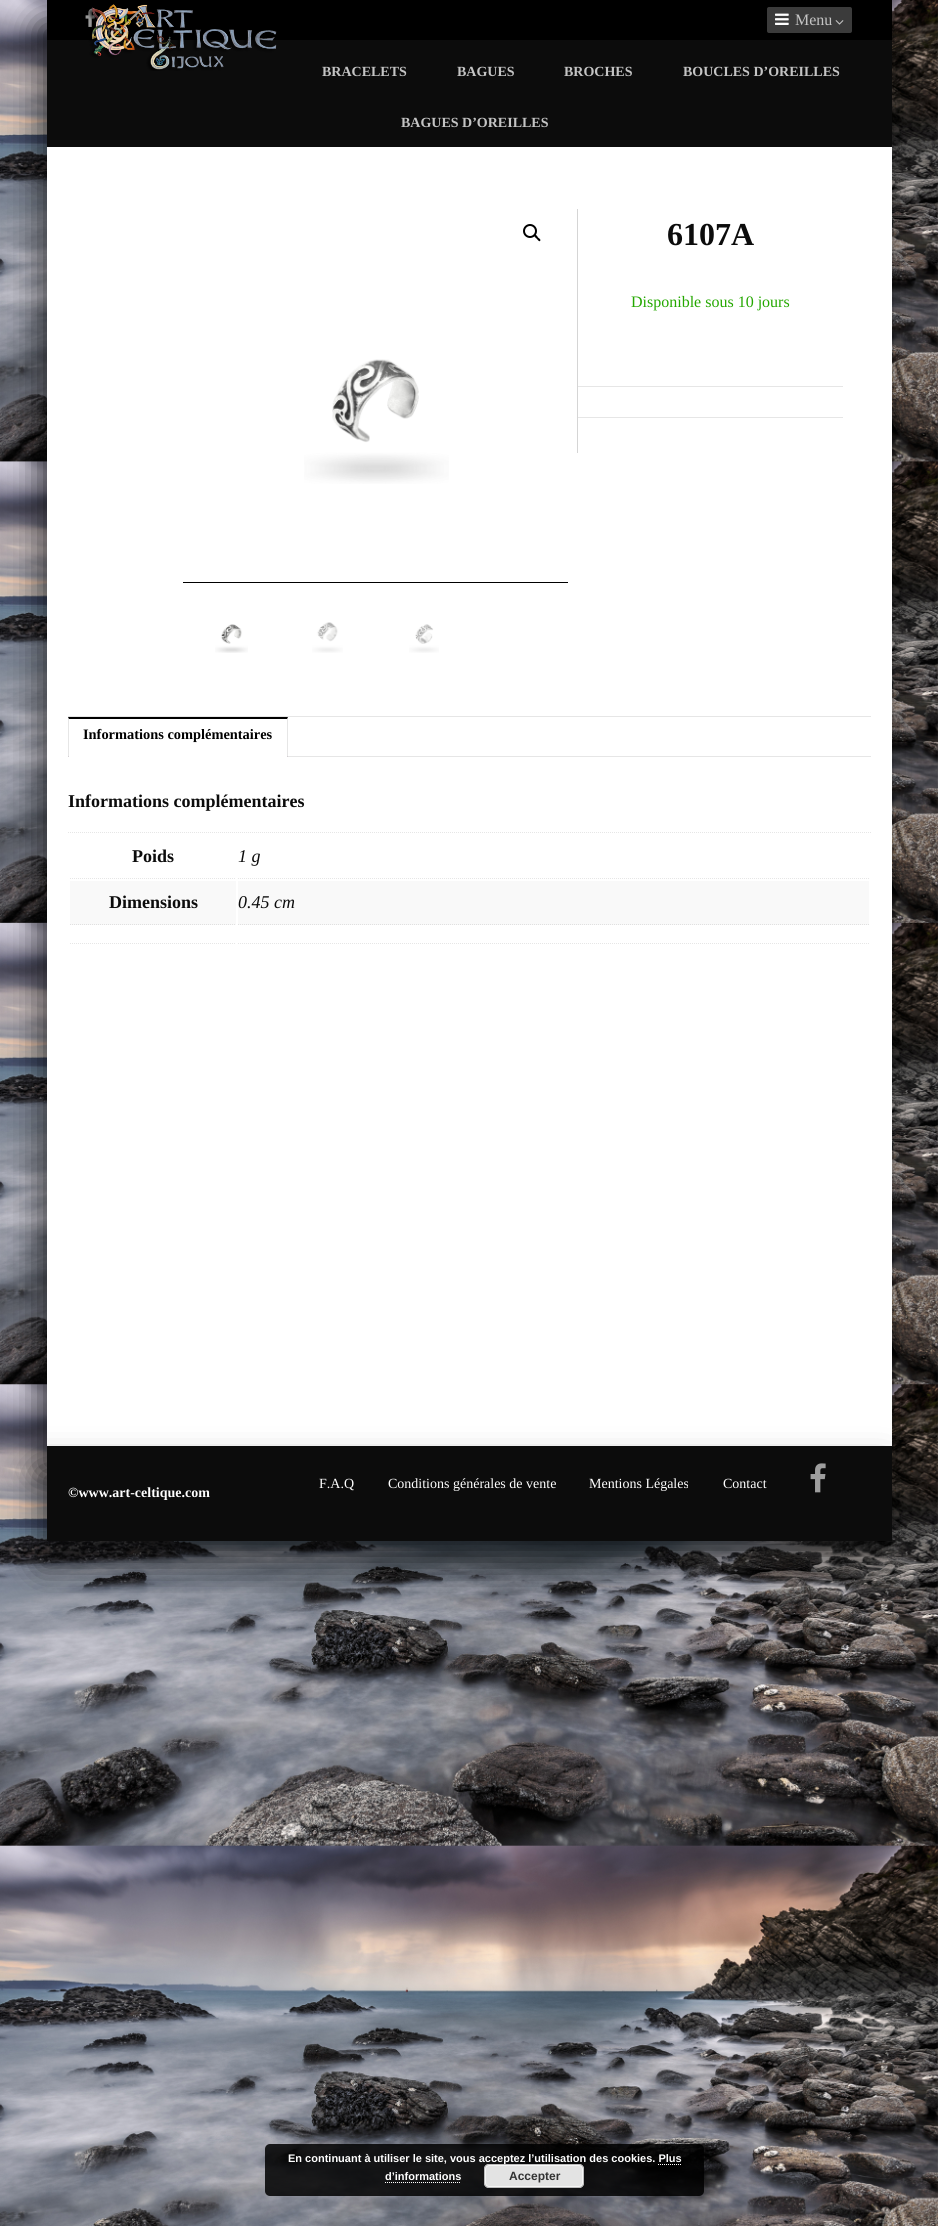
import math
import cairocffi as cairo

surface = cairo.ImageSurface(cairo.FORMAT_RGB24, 939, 2226)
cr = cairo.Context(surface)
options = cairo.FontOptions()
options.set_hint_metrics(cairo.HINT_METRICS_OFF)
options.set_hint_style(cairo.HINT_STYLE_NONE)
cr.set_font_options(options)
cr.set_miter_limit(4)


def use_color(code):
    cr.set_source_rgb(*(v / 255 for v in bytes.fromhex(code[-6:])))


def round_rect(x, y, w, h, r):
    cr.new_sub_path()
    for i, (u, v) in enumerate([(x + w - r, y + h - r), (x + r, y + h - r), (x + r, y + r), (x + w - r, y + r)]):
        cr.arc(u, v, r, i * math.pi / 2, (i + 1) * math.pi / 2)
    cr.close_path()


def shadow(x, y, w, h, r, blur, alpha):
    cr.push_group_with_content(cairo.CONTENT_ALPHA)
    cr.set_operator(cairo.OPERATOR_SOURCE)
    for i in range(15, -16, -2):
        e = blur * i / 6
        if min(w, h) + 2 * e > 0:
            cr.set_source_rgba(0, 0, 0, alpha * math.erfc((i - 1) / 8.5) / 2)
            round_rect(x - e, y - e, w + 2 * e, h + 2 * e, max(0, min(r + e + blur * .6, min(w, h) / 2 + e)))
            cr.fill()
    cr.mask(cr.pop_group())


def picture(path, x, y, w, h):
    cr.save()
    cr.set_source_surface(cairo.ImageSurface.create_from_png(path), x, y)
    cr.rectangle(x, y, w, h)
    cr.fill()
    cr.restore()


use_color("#ffffff")
cr.paint()
picture("img1.png", 0, 0, 938, 2226)
use_color("#000000")
shadow(40, 25, 845, 147, 0, 18, 0.7)
shadow(40, 172, 845, 1299, 0, 18, 0.7)
use_color("#0c0c0c")
cr.rectangle(47, 40, 845, 107)
cr.fill()
use_color("#000000")
cr.rectangle(47, 0, 845, 40)
cr.fill()
picture("img2.png", 85, 8, 11, 19)
use_color("#3b3b3b")
round_rect(767, 7, 85, 26, 2)
cr.fill()
picture("img3.png", 775, 13, 14, 12)
cr.select_font_face("Liberation Serif")
cr.set_font_size(16)
use_color("#c4c4c4")
cr.move_to(795, 25)
cr.show_text("Menu")
picture("img4.png", 835, 20, 9, 5)
picture("img5.png", 88, 4, 189, 67)
cr.select_font_face("Liberation Serif", cairo.FONT_SLANT_NORMAL, cairo.FONT_WEIGHT_BOLD)
cr.set_font_size(14)
cr.move_to(322, 76)
cr.show_text("BRACELETS")
cr.move_to(457, 76)
cr.show_text("BAGUES")
cr.move_to(564, 76)
cr.show_text("BROCHES")
cr.move_to(683, 76)
cr.show_text("BOUCLES D’OREILLES")
cr.move_to(401, 127)
cr.show_text("BAGUES D’OREILLES")
use_color("#ffffff")
cr.rectangle(47, 147, 845, 1299)
cr.fill()
cr.arc(530, 231, 6, 0, 2 * math.pi)
use_color("#000000")
cr.stroke()
cr.new_path()
cr.move_to(534.5, 235)
cr.curve_to(536, 234, 537.5, 236.5, 538, 237.5)
cr.curve_to(538.5, 238, 541.5, 239.5, 540, 241)
cr.curve_to(539, 242, 537.5, 239.5, 536.5, 238.5)
cr.curve_to(536, 238, 533.5, 236.5, 534.5, 235)
cr.close_path()
cr.fill()
picture("img6.png", 304, 359, 145, 125)
cr.rectangle(183, 582, 385, 1)
cr.fill()
picture("img7.png", 215, 624, 33, 29)
picture("img8.png", 312, 622, 31, 31)
picture("img9.png", 409, 624, 30, 29)
use_color("#d5d5d5")
cr.rectangle(577, 209, 1, 244)
cr.fill()
cr.set_font_size(32)
use_color("#0c0c0c")
cr.move_to(667, 245)
cr.show_text("6107A")
cr.select_font_face("Liberation Serif")
cr.set_font_size(16)
use_color("#24a800")
cr.move_to(631, 307)
cr.show_text("Disponible sous 10 jours")
use_color("#e6e6e6")
cr.rectangle(578, 386, 265, 1)
cr.fill()
cr.rectangle(578, 417, 265, 1)
cr.fill()
cr.rectangle(68, 716, 803, 1)
cr.fill()
use_color("#000000")
cr.new_path()
cr.move_to(68, 717)
cr.line_to(288, 717)
cr.line_to(287, 719)
cr.line_to(69, 719)
cr.close_path()
cr.fill()
cr.save()
cr.rectangle(68, 717, 803, 40)
cr.clip()
cr.set_source_rgba(0, 0, 0, 0.1)
cr.new_path()
cr.move_to(288, 717)
cr.line_to(288, 760)
cr.line_to(287, 760)
cr.line_to(287, 719)
cr.close_path()
cr.fill()
cr.new_path()
cr.move_to(68, 760)
cr.line_to(68, 717)
cr.line_to(69, 719)
cr.line_to(69, 760)
cr.close_path()
cr.fill()
cr.restore()
cr.select_font_face("Liberation Serif", cairo.FONT_SLANT_NORMAL, cairo.FONT_WEIGHT_BOLD)
cr.set_font_size(14.4)
cr.move_to(83, 739)
cr.show_text("Informations complémentaires")
cr.save()
cr.rectangle(68, 717, 803, 40)
cr.clip()
use_color("#d3ced2")
cr.set_fill_rule(cairo.FILL_RULE_EVEN_ODD)
cr.new_path()
cr.move_to(64, 756)
cr.line_to(69, 756)
cr.curve_to(69, 759.5, 67.5, 761, 64, 761)
cr.close_path()
cr.move_to(64, 756)
cr.line_to(68, 756)
cr.curve_to(68, 759, 67, 760, 64, 760)
cr.close_path()
cr.fill()
cr.new_path()
cr.move_to(287, 756)
cr.line_to(292, 756)
cr.line_to(292, 761)
cr.curve_to(289.5, 761, 287, 760, 287, 757)
cr.close_path()
cr.move_to(288, 756)
cr.line_to(292, 756)
cr.line_to(292, 760)
cr.curve_to(290, 760, 288, 759.5, 288, 757)
cr.close_path()
cr.fill()
cr.restore()
use_color("#e6e6e6")
cr.rectangle(288, 756, 583, 1)
cr.fill()
cr.set_font_size(18)
use_color("#0c0c0c")
cr.move_to(68, 807)
cr.show_text("Informations complémentaires")
cr.new_path()
cr.move_to(68, 832.5)
cr.line_to(871, 832.5)
use_color("#e6e6e6")
cr.set_line_width(1)
cr.set_dash([1, 1])
cr.stroke()
cr.new_path()
cr.move_to(70, 878.5)
cr.line_to(236, 878.5)
cr.stroke()
use_color("#0c0c0c")
cr.move_to(132, 862)
cr.show_text("Poids")
cr.new_path()
cr.move_to(238, 878.5)
cr.line_to(869, 878.5)
use_color("#e6e6e6")
cr.stroke()
cr.select_font_face("Liberation Serif", cairo.FONT_SLANT_ITALIC)
use_color("#0c0c0c")
cr.move_to(238, 862)
cr.show_text("1 g")
use_color("#f9f9f9")
cr.rectangle(70, 881, 166, 44)
cr.fill()
cr.new_path()
cr.move_to(70, 924.5)
cr.line_to(236, 924.5)
use_color("#e0e0e0")
cr.stroke()
cr.select_font_face("Liberation Serif", cairo.FONT_SLANT_NORMAL, cairo.FONT_WEIGHT_BOLD)
use_color("#0c0c0c")
cr.move_to(109, 908)
cr.show_text("Dimensions")
use_color("#f9f9f9")
cr.rectangle(238, 881, 631, 44)
cr.fill()
cr.new_path()
cr.move_to(238, 924.5)
cr.line_to(869, 924.5)
use_color("#e0e0e0")
cr.stroke()
cr.select_font_face("Liberation Serif", cairo.FONT_SLANT_ITALIC)
use_color("#0c0c0c")
cr.move_to(238, 908)
cr.show_text("0.45 cm")
cr.new_path()
cr.move_to(70, 943.5)
cr.line_to(236, 943.5)
use_color("#e6e6e6")
cr.stroke()
cr.new_path()
cr.move_to(238, 943.5)
cr.line_to(869, 943.5)
cr.stroke()
use_color("#000000")
shadow(40, 1471, 845, 95, 0, 18, 0.7)
use_color("#0c0c0c")
cr.rectangle(47, 1446, 845, 95)
cr.fill()
cr.select_font_face("Liberation Serif")
cr.set_font_size(14)
use_color("#ffffff")
cr.move_to(319, 1488)
cr.show_text("F.A.Q")
cr.move_to(388, 1488)
cr.show_text("Conditions générales de vente")
cr.move_to(589, 1488)
cr.show_text("Mentions Légales")
cr.move_to(723, 1488)
cr.show_text("Contact")
picture("img10.png", 810, 1463, 16, 30)
cr.select_font_face("Liberation Serif", cairo.FONT_SLANT_NORMAL, cairo.FONT_WEIGHT_BOLD)
cr.move_to(68, 1497)
cr.show_text("©www.art-celtique.com")
cr.set_source_rgba(0, 0, 0, 0.85)
round_rect(265, 2144, 439, 52, 5)
cr.fill()
cr.select_font_face("Liberation Sans", cairo.FONT_SLANT_NORMAL, cairo.FONT_WEIGHT_BOLD)
cr.set_font_size(11)
use_color("#ffffff")
cr.move_to(288, 2162)
cr.show_text("En continuant à utiliser le site, vous acceptez l’utilisation des cookies. Plus")
cr.move_to(385, 2180)
cr.show_text("d’informations")
cr.new_path()
cr.move_to(658, 2164.5)
cr.line_to(681, 2164.5)
cr.stroke()
cr.new_path()
cr.move_to(385, 2182.5)
cr.line_to(461, 2182.5)
cr.stroke()
use_color("#e3e3e3")
round_rect(484, 2164, 100, 24, 5)
cr.fill()
round_rect(485.5, 2165.5, 97, 21, 3.5)
use_color("#f6f6f6")
cr.set_dash([])
cr.stroke()
round_rect(484.5, 2164.5, 99, 23, 4.5)
use_color("#bbbbbb")
cr.stroke()
cr.set_font_size(12)
use_color("#333333")
cr.move_to(509, 2180)
cr.show_text("Accepter")
surface.write_to_png("result.png")
